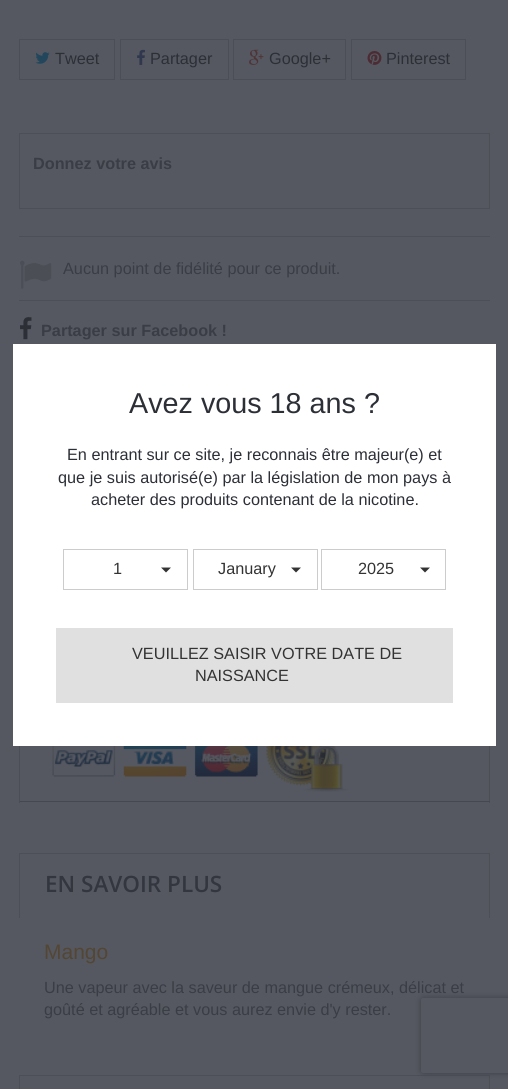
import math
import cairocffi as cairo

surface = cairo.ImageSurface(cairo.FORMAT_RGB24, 508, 1089)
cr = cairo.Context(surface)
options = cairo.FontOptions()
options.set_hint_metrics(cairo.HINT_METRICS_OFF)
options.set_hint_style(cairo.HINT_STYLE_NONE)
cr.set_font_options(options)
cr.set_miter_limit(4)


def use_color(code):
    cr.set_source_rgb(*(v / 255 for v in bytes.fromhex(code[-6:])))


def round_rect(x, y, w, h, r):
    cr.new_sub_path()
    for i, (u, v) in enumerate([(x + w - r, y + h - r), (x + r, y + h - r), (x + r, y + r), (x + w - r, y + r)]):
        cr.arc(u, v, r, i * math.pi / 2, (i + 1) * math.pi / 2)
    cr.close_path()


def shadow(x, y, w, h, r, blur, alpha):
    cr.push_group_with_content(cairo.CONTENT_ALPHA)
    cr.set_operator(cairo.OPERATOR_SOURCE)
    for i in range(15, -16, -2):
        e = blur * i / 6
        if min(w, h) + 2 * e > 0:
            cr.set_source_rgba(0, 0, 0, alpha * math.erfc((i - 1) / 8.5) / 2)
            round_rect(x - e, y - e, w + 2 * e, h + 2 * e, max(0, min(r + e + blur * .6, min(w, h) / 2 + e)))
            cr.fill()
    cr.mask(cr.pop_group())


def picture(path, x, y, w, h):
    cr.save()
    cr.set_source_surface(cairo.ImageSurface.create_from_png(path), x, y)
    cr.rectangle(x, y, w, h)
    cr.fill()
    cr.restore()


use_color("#555860")
cr.paint()
cr.rectangle(19.5, 39.5, 95, 40)
use_color("#4b4e56")
cr.set_line_width(1)
cr.stroke()
picture("img1.png", 35, 52, 15, 12)
cr.select_font_face("Liberation Sans")
cr.set_font_size(16.25)
use_color("#2d2f37")
cr.move_to(55, 64)
cr.show_text("Tweet")
cr.rectangle(120.5, 39.5, 108, 40)
use_color("#4b4e56")
cr.stroke()
picture("img2.png", 137, 49, 8, 16)
use_color("#2d2f37")
cr.move_to(150, 64)
cr.show_text("Partager")
cr.rectangle(233.5, 39.5, 112, 40)
use_color("#4b4e56")
cr.stroke()
picture("img3.png", 249, 49, 15, 16)
use_color("#2d2f37")
cr.move_to(269, 64)
cr.show_text("Google+")
cr.rectangle(351.5, 39.5, 114, 40)
use_color("#4b4e56")
cr.stroke()
picture("img4.png", 367, 51, 15, 14)
use_color("#2d2f37")
cr.move_to(386, 64)
cr.show_text("Pinterest")
cr.rectangle(19.5, 133.5, 470, 75)
use_color("#4d4f57")
cr.stroke()
cr.select_font_face("Liberation Sans", cairo.FONT_SLANT_NORMAL, cairo.FONT_WEIGHT_BOLD)
use_color("#3a3d45")
cr.move_to(33, 169)
cr.show_text("Donnez votre avis")
use_color("#4d4f57")
cr.rectangle(19, 236, 471, 1)
cr.fill()
cr.rectangle(19, 300, 471, 1)
cr.fill()
picture("img5.png", 20, 260, 32, 29)
cr.select_font_face("Liberation Sans")
use_color("#3a3d45")
cr.move_to(63, 274)
cr.show_text("Aucun point de fidélité pour ce produit.")
picture("img6.png", 20, 317, 12, 23)
cr.select_font_face("Liberation Sans", cairo.FONT_SLANT_NORMAL, cairo.FONT_WEIGHT_BOLD)
cr.move_to(41, 336)
cr.show_text("Partager sur Facebook !")
use_color("#4c4e56")
cr.rectangle(489, 746, 1, 57)
cr.fill()
use_color("#464850")
cr.rectangle(19, 801, 471, 1)
cr.fill()
use_color("#4c4e56")
cr.rectangle(19, 746, 1, 57)
cr.fill()
picture("img7.png", 52, 746, 297, 46)
use_color("#4d4f57")
cr.rectangle(19, 853, 471, 1)
cr.fill()
cr.rectangle(489, 853, 1, 65)
cr.fill()
cr.rectangle(19, 853, 1, 65)
cr.fill()
cr.select_font_face("Open Sans SemiBold")
cr.set_font_size(22.5)
use_color("#33363e")
cr.move_to(45, 892)
cr.show_text("EN SAVOIR PLUS")
cr.select_font_face("Liberation Sans")
cr.set_font_size(21)
use_color("#534634")
cr.move_to(44, 959)
cr.show_text("Mango")
cr.set_font_size(16.25)
use_color("#3a3d45")
cr.move_to(44, 993)
cr.show_text("Une vapeur avec la saveur de mangue crémeux, délicat et")
cr.move_to(44, 1015)
cr.show_text("goûté et agréable et vous aurez envie d'y rester.")
use_color("#4d4f57")
cr.rectangle(19, 1075, 471, 1)
cr.fill()
cr.rectangle(489, 1075, 1, 14)
cr.fill()
cr.rectangle(19, 1075, 1, 14)
cr.fill()
use_color("#ffffff")
cr.rectangle(13, 344, 483, 402)
cr.fill()
cr.set_font_size(28.75)
use_color("#2d2f37")
cr.move_to(129, 413)
cr.show_text("Avez vous 18 ans ?")
cr.set_font_size(16.25)
cr.move_to(67, 460)
cr.show_text("En entrant sur ce site, je reconnais être majeur(e) et")
cr.move_to(58, 483)
cr.show_text("que je suis autorisé(e) par la législation de mon pays à")
cr.move_to(91, 505)
cr.show_text("acheter des produits contenant de la nicotine.")
cr.rectangle(63.5, 549.5, 124, 40)
use_color("#cccccc")
cr.stroke()
use_color("#333333")
cr.move_to(113, 574)
cr.show_text("1")
cr.new_path()
cr.move_to(161, 567.5)
cr.line_to(171, 567.5)
cr.line_to(166, 572.5)
cr.close_path()
cr.fill()
cr.rectangle(193.5, 549.5, 124, 40)
use_color("#cccccc")
cr.stroke()
use_color("#333333")
cr.move_to(218, 574)
cr.show_text("January")
cr.new_path()
cr.move_to(291, 567.5)
cr.line_to(301, 567.5)
cr.line_to(296, 572.5)
cr.close_path()
cr.fill()
cr.rectangle(321.5, 549.5, 124, 40)
use_color("#cccccc")
cr.stroke()
use_color("#333333")
cr.move_to(358, 574)
cr.show_text("2025")
cr.new_path()
cr.move_to(420, 567.5)
cr.line_to(430, 567.5)
cr.line_to(425, 572.5)
cr.close_path()
cr.fill()
use_color("#e0e0e0")
cr.rectangle(56, 628, 397, 75)
cr.fill()
use_color("#333333")
cr.move_to(132, 659)
cr.show_text("VEUILLEZ SAISIR VOTRE DATE DE")
cr.move_to(195, 681)
cr.show_text("NAISSANCE")
cr.save()
cr.set_fill_rule(cairo.FILL_RULE_EVEN_ODD)
cr.new_path()
cr.move_to(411, 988)
cr.line_to(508, 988)
cr.line_to(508, 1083)
cr.line_to(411, 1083)
cr.close_path()
cr.move_to(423.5, 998)
cr.line_to(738.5, 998)
cr.curve_to(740, 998, 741, 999, 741, 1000.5)
cr.line_to(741, 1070.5)
cr.curve_to(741, 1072, 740, 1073, 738.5, 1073)
cr.line_to(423.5, 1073)
cr.curve_to(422, 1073, 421, 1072, 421, 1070.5)
cr.line_to(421, 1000.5)
cr.curve_to(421, 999, 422, 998, 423.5, 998)
cr.close_path()
cr.clip()
use_color("#3c3e46")
shadow(421, 998, 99, 75, 2.5, 3, 1)
cr.restore()
surface.write_to_png("result.png")
